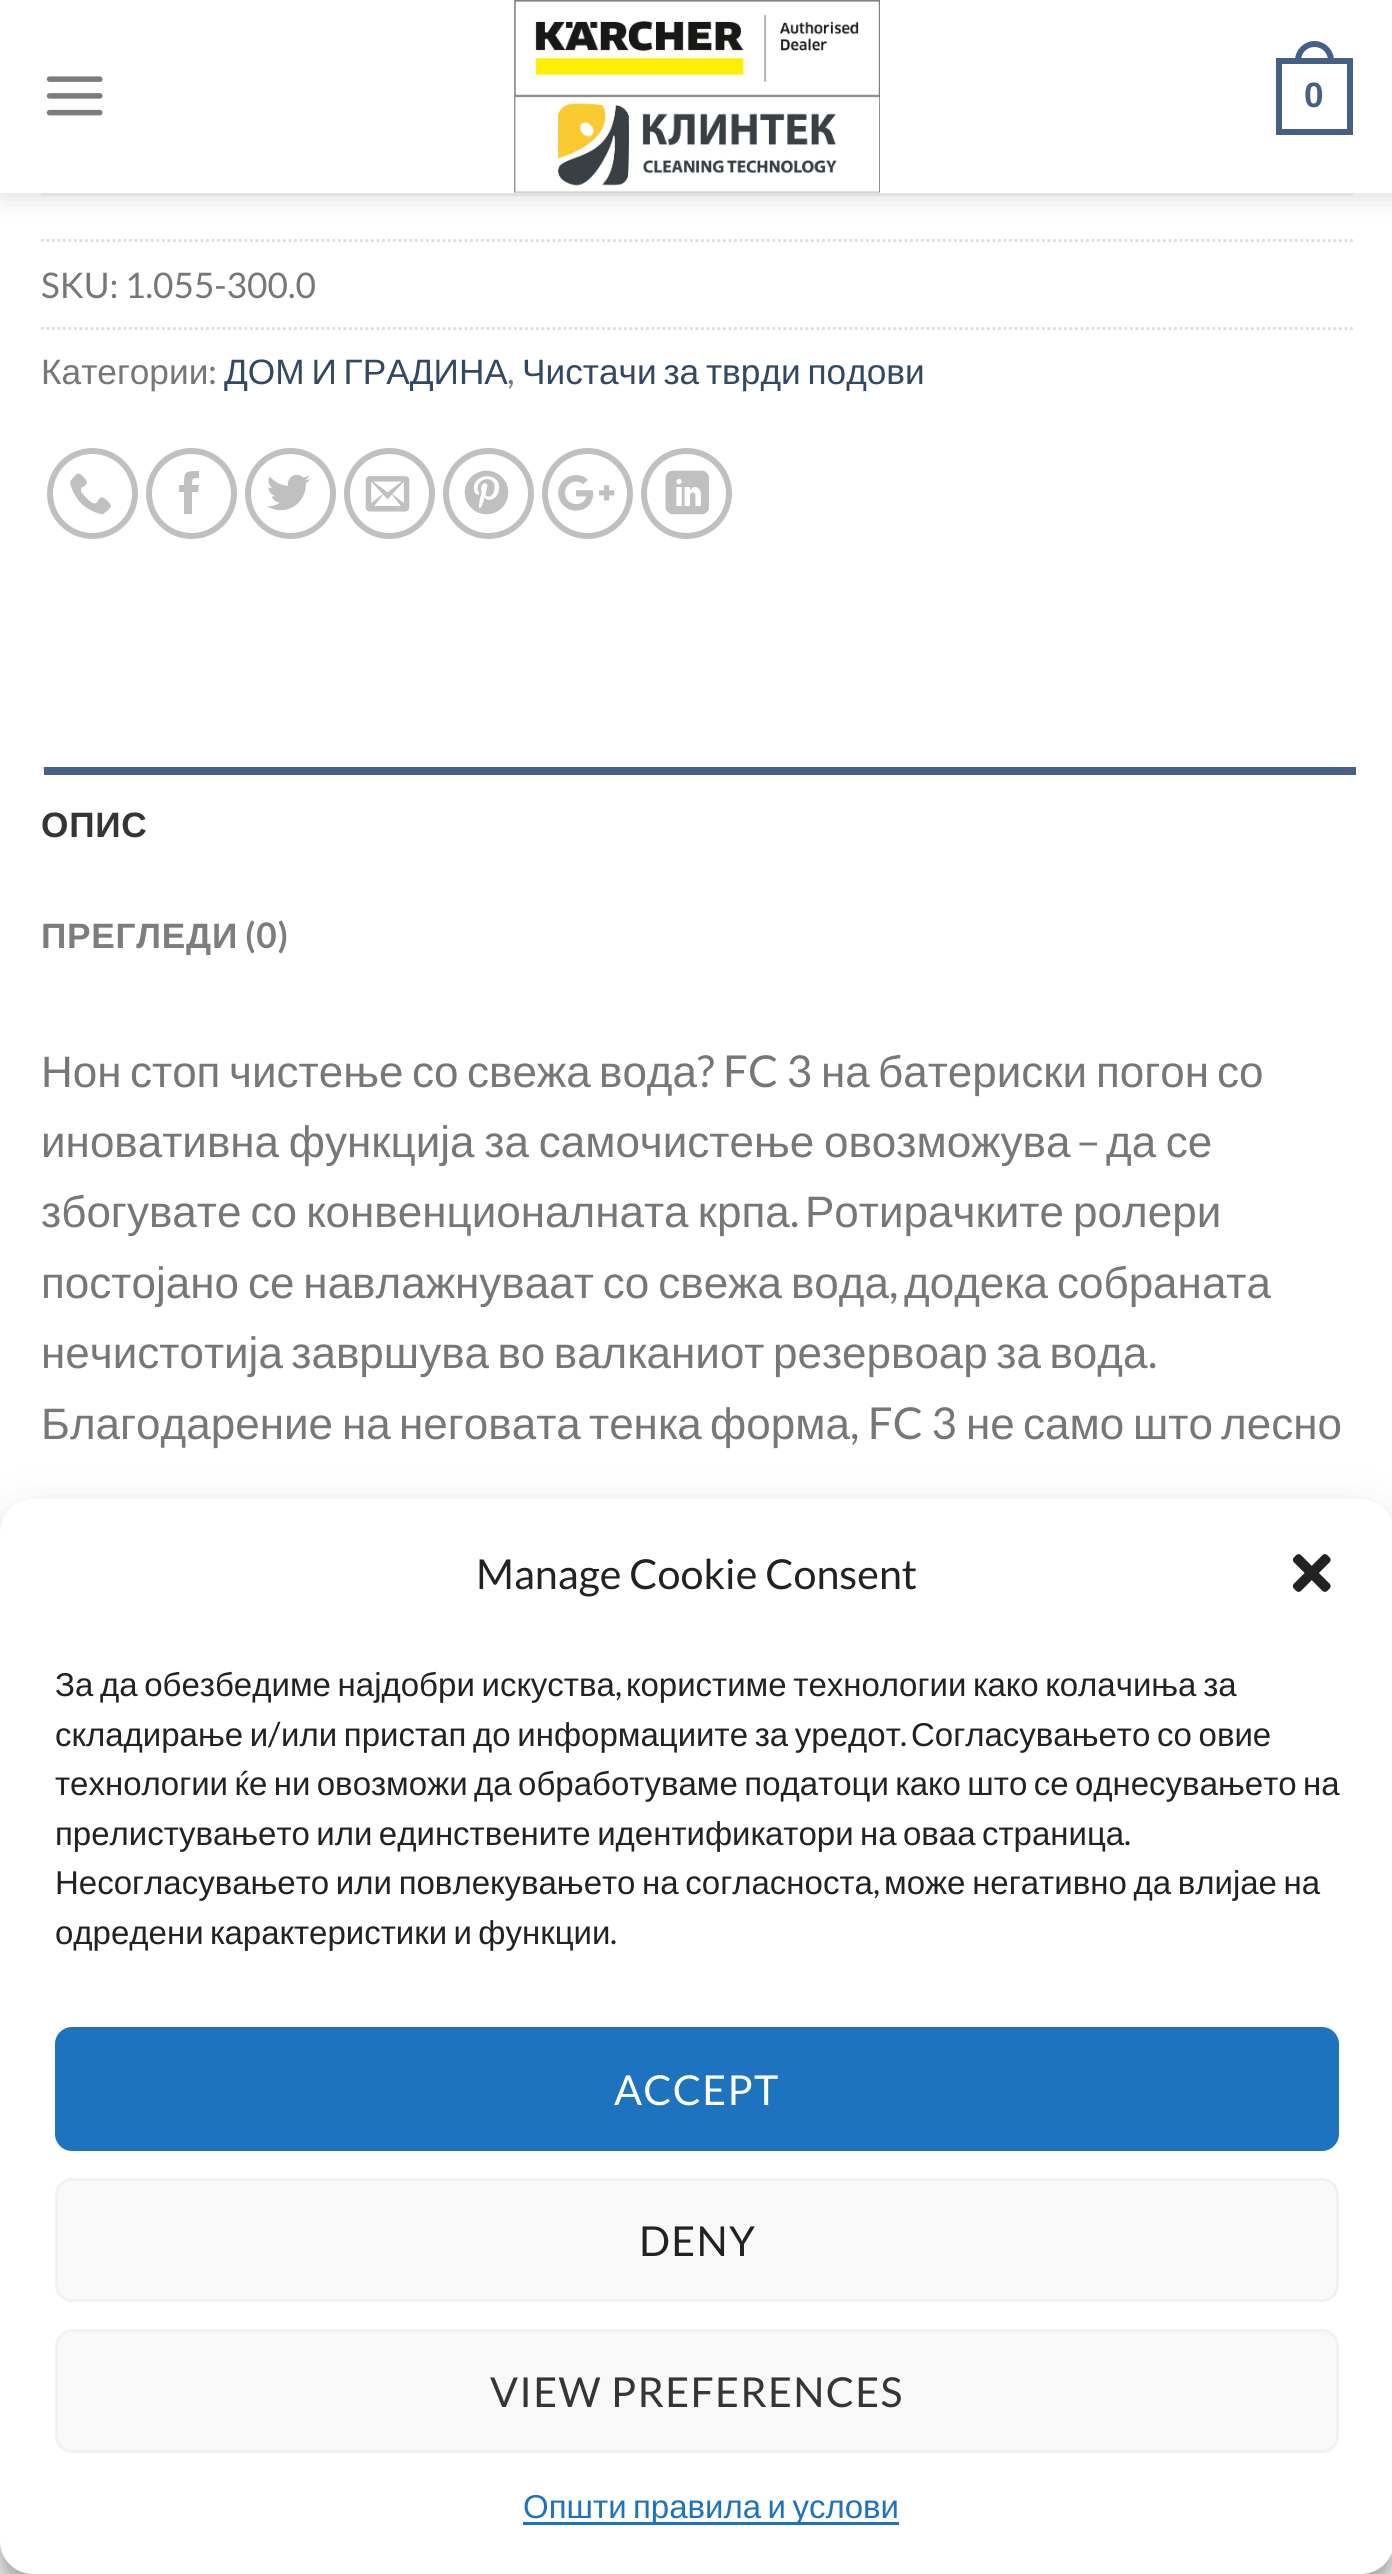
import math
import cairocffi as cairo

surface = cairo.ImageSurface(cairo.FORMAT_RGB24, 1392, 2574)
cr = cairo.Context(surface)
options = cairo.FontOptions()
options.set_hint_metrics(cairo.HINT_METRICS_OFF)
options.set_hint_style(cairo.HINT_STYLE_NONE)
cr.set_font_options(options)
cr.set_miter_limit(4)


def use_color(code):
    cr.set_source_rgb(*(v / 255 for v in bytes.fromhex(code[-6:])))


def spaced_text(x, y, s, letter, word):
    cr.move_to(x, y)
    for ch in s:
        cr.show_text(ch)
        cr.rel_move_to(letter + word * (ch == ' '), 0)


def round_rect(x, y, w, h, r):
    cr.new_sub_path()
    for i, (u, v) in enumerate([(x + w - r, y + h - r), (x + r, y + h - r), (x + r, y + r), (x + w - r, y + r)]):
        cr.arc(u, v, r, i * math.pi / 2, (i + 1) * math.pi / 2)
    cr.close_path()


def shadow(x, y, w, h, r, blur, alpha):
    cr.push_group_with_content(cairo.CONTENT_ALPHA)
    cr.set_operator(cairo.OPERATOR_SOURCE)
    for i in range(15, -16, -2):
        e = blur * i / 6
        if min(w, h) + 2 * e > 0:
            cr.set_source_rgba(0, 0, 0, alpha * math.erfc((i - 1) / 8.5) / 2)
            round_rect(x - e, y - e, w + 2 * e, h + 2 * e, max(0, min(r + e + blur * .6, min(w, h) / 2 + e)))
            cr.fill()
    cr.mask(cr.pop_group())


def picture(path, x, y, w, h):
    cr.save()
    cr.set_source_surface(cairo.ImageSurface.create_from_png(path), x, y)
    cr.rectangle(x, y, w, h)
    cr.fill()
    cr.restore()


use_color("#ffffff")
cr.paint()
cr.save()
cr.set_fill_rule(cairo.FILL_RULE_EVEN_ODD)
cr.new_path()
cr.move_to(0, 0)
cr.line_to(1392, 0)
cr.line_to(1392, 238)
cr.line_to(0, 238)
cr.close_path()
cr.move_to(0, 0)
cr.line_to(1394, 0)
cr.line_to(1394, 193)
cr.line_to(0, 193)
cr.close_path()
cr.clip()
use_color("#000000")
shadow(3, 3, 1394, 192, 0, 14, 0.15)
cr.restore()
picture("img1.png", 46, 76, 57, 40)
cr.set_source_rgba(1, 1, 1, 0.9)
cr.rectangle(0, 192, 1392, 1)
cr.fill()
picture("img2.png", 514, 0, 366, 193)
cr.rectangle(1279, 61, 71, 71)
use_color("#446084")
cr.set_line_width(6)
cr.stroke()
cr.set_fill_rule(cairo.FILL_RULE_EVEN_ODD)
cr.new_path()
cr.move_to(1314.5, 41)
cr.curve_to(1325, 41, 1334, 50, 1334, 60.5)
cr.line_to(1334, 63)
cr.line_to(1295, 63)
cr.line_to(1295, 60.5)
cr.curve_to(1295, 50, 1304, 41, 1314.5, 41)
cr.close_path()
cr.move_to(1314.5, 47)
cr.curve_to(1322, 47, 1328, 53, 1328, 60.5)
cr.line_to(1328, 63)
cr.line_to(1301, 63)
cr.line_to(1301, 60.5)
cr.curve_to(1301, 53, 1307, 47, 1314.5, 47)
cr.close_path()
cr.fill()
cr.select_font_face("Liberation Sans", cairo.FONT_SLANT_NORMAL, cairo.FONT_WEIGHT_BOLD)
cr.set_font_size(35.25)
cr.move_to(1304, 107)
cr.show_text("0")
use_color("#e0e0e0")
cr.rectangle(41, 193, 1312, 3)
cr.fill()
cr.new_path()
cr.move_to(41, 240.5)
cr.line_to(1353, 240.5)
use_color("#dddddd")
cr.set_line_width(2.8)
cr.set_dash([2.75, 2.75])
cr.stroke()
cr.select_font_face("Lato")
use_color("#777777")
cr.move_to(41, 298)
cr.show_text("SKU: 1.055-300.0")
cr.new_path()
cr.move_to(41, 328.5)
cr.line_to(1353, 328.5)
use_color("#dddddd")
cr.stroke()
cr.select_font_face("Liberation Sans")
use_color("#777777")
cr.move_to(41, 384)
cr.show_text("Категории")
cr.select_font_face("Lato")
cr.move_to(208, 384)
cr.show_text(":")
cr.select_font_face("Liberation Sans")
use_color("#334862")
spaced_text(224, 384, "ДОМ И ГРАДИНА", 0, -3)
cr.select_font_face("Lato")
use_color("#777777")
cr.move_to(507, 384)
cr.show_text(",")
cr.select_font_face("Liberation Sans")
use_color("#334862")
spaced_text(522, 384, "Чистачи за тврди подови", 0, -3)
cr.new_path()
cr.arc(92.5, 493.5, 42.5, 0, 2 * math.pi)
use_color("#c0c0c0")
cr.set_line_width(6)
cr.set_dash([])
cr.stroke()
picture("img3.png", 70, 473, 41, 42)
cr.arc(191.5, 493.5, 42.5, 0, 2 * math.pi)
cr.stroke()
cr.set_fill_rule(cairo.FILL_RULE_WINDING)
cr.new_path()
cr.move_to(192, 514)
cr.line_to(184, 514)
cr.line_to(184, 492)
cr.line_to(179, 492)
cr.line_to(179, 485)
cr.line_to(184, 485)
cr.curve_to(184, 471, 185, 471, 199, 471)
cr.line_to(199, 478)
cr.curve_to(192, 478, 192, 478, 192, 485)
cr.line_to(199, 485)
cr.line_to(198, 492)
cr.line_to(192, 492)
cr.close_path()
cr.fill()
cr.arc(290.5, 493.5, 42.5, 0, 2 * math.pi)
cr.stroke()
picture("img4.png", 267, 474, 43, 37)
cr.arc(389.5, 493.5, 42.5, 0, 2 * math.pi)
cr.stroke()
picture("img5.png", 365, 476, 45, 36)
cr.arc(488.5, 493.5, 42.5, 0, 2 * math.pi)
cr.stroke()
picture("img6.png", 464, 470, 45, 45)
cr.arc(587.5, 493.5, 42.5, 0, 2 * math.pi)
cr.stroke()
picture("img7.png", 558, 475, 57, 36)
cr.arc(686.5, 493.5, 42.5, 0, 2 * math.pi)
cr.stroke()
picture("img8.png", 665, 470, 44, 45)
use_color("#ececec")
cr.rectangle(41, 767, 3, 3)
cr.fill()
use_color("#446084")
cr.rectangle(44, 767, 1312, 8)
cr.fill()
cr.select_font_face("Liberation Sans", cairo.FONT_SLANT_NORMAL, cairo.FONT_WEIGHT_BOLD)
use_color("#353535")
spaced_text(41, 837, "ОПИС", 0.75, 0)
use_color("#7d7d7d")
spaced_text(41, 948, "ПРЕГЛЕДИ", 0.75, 0)
cr.select_font_face("Lato", cairo.FONT_SLANT_NORMAL, cairo.FONT_WEIGHT_BOLD)
spaced_text(245, 948, "(0)", 0.75, 0)
cr.select_font_face("Liberation Sans")
cr.set_font_size(44)
use_color("#777777")
cr.move_to(41, 1087)
cr.show_text("Нон")
cr.move_to(130, 1087)
cr.show_text("стоп")
cr.move_to(229, 1087)
cr.show_text("чистење")
cr.move_to(412, 1087)
cr.show_text("со")
cr.move_to(467, 1087)
cr.show_text("свежа")
cr.move_to(599, 1087)
cr.show_text("вода")
cr.select_font_face("Lato")
cr.move_to(697, 1087)
cr.show_text("? FC 3")
cr.select_font_face("Liberation Sans")
cr.move_to(821, 1087)
cr.show_text("на")
cr.move_to(878, 1087)
cr.show_text("батериски")
cr.move_to(1096, 1087)
cr.show_text("погон")
cr.move_to(1217, 1087)
cr.show_text("со")
spaced_text(41, 1157, "иновативна функција за самочистење овозможува", 0, -2.5)
cr.select_font_face("Lato")
cr.move_to(1076, 1157)
cr.show_text("–")
cr.select_font_face("Liberation Sans")
spaced_text(1106, 1157, "да се", 0, -2.5)
spaced_text(41, 1227, "збогувате со конвенционалната крпа", 0, -3)
cr.select_font_face("Lato")
cr.move_to(790, 1227)
cr.show_text(".")
cr.select_font_face("Liberation Sans")
spaced_text(805, 1227, "Ротирачките ролери", 0, -3)
spaced_text(41, 1298, "постојано се навлажнуваат со свежа вода", 0, -3.25)
cr.select_font_face("Lato")
cr.move_to(889, 1298)
cr.show_text(",")
cr.select_font_face("Liberation Sans")
spaced_text(904, 1298, "додека собраната", 0, -3.25)
spaced_text(41, 1368, "нечистотија завршува во валканиот резервоар за вода", 0, -3.75)
cr.select_font_face("Lato")
cr.move_to(1148, 1368)
cr.show_text(".")
cr.select_font_face("Liberation Sans")
cr.move_to(41, 1439)
cr.show_text("Благодарение")
cr.move_to(342, 1439)
cr.show_text("на")
cr.move_to(399, 1439)
cr.show_text("неговата")
cr.move_to(589, 1439)
cr.show_text("тенка")
cr.move_to(710, 1439)
cr.show_text("форма")
cr.select_font_face("Lato")
cr.move_to(850, 1439)
cr.show_text(", FC 3")
cr.select_font_face("Liberation Sans")
cr.move_to(966, 1439)
cr.show_text("не")
cr.move_to(1023, 1439)
cr.show_text("само")
cr.move_to(1133, 1439)
cr.show_text("што")
cr.move_to(1221, 1439)
cr.show_text("лесно")
use_color("#000000")
shadow(0, 1515, 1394, 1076, 33, 8, 0.23)
shadow(0, 1526, 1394, 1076, 33, 27.5, 0.19)
use_color("#ffffff")
round_rect(0, 1499, 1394, 1075, 33)
cr.fill()
cr.select_font_face("Lato")
cr.set_font_size(41.25)
use_color("#222222")
cr.move_to(476, 1589)
cr.show_text("Manage Cookie Consent")
picture("img9.png", 1292, 1554, 39, 38)
cr.select_font_face("Liberation Sans")
cr.set_font_size(33)
spaced_text(55, 1696, "За да обезбедиме најдобри искуства", 0, -2.5)
cr.select_font_face("Lato")
cr.move_to(615, 1696)
cr.show_text(",")
cr.select_font_face("Liberation Sans")
spaced_text(626, 1696, "користиме технологии како колачиња за", 0, -2.5)
spaced_text(55, 1746, "складирање и", 0, -2.5)
cr.select_font_face("Lato")
cr.move_to(268, 1746)
cr.show_text("/")
cr.select_font_face("Liberation Sans")
spaced_text(281, 1746, "или пристап до информациите за уредот", 0, -2.5)
cr.select_font_face("Lato")
cr.move_to(900, 1746)
cr.show_text(".")
cr.select_font_face("Liberation Sans")
spaced_text(911, 1746, "Согласувањето со овие", 0, -2.5)
spaced_text(55, 1795, "технологии ќе ни овозможи да обработуваме податоци како што се однесувањето на", 0, -2.75)
spaced_text(55, 1845, "прелистувањето или единствените идентификатори на оваа страница", 0, -2.75)
cr.select_font_face("Lato")
cr.move_to(1124, 1845)
cr.show_text(".")
cr.select_font_face("Liberation Sans")
spaced_text(55, 1894, "Несогласувањето или повлекувањето на согласноста", 0, -2.5)
cr.select_font_face("Lato")
cr.move_to(873, 1894)
cr.show_text(",")
cr.select_font_face("Liberation Sans")
spaced_text(884, 1894, "може негативно да влијае на", 0, -2.5)
spaced_text(55, 1944, "одредени карактеристики и функции", 0, -2.75)
cr.select_font_face("Lato")
cr.move_to(610, 1944)
cr.show_text(".")
use_color("#1e73be")
round_rect(56.5, 2028.5, 1281, 121, 15.5)
cr.fill_preserve()
cr.set_line_width(3)
cr.stroke()
cr.set_font_size(41.25)
use_color("#ffffff")
spaced_text(614, 2105, "ACCEPT", 1.25, 0)
use_color("#f9f9f9")
round_rect(56.5, 2179.5, 1281, 121, 15.5)
cr.fill_preserve()
use_color("#f2f2f2")
cr.stroke()
use_color("#222222")
spaced_text(639, 2256, "DENY", 1.25, 0)
use_color("#f9f9f9")
round_rect(56.5, 2330.5, 1281, 121, 15.5)
cr.fill_preserve()
use_color("#f2f2f2")
cr.stroke()
use_color("#353535")
spaced_text(490, 2407, "VIEW PREFERENCES", 1.25, 0)
use_color("#1e73be")
cr.rectangle(523, 2522, 376, 3)
cr.fill()
cr.select_font_face("Liberation Sans")
cr.set_font_size(33)
spaced_text(523, 2518, "Општи правила и услови", 0, -2.75)
surface.write_to_png("result.png")
